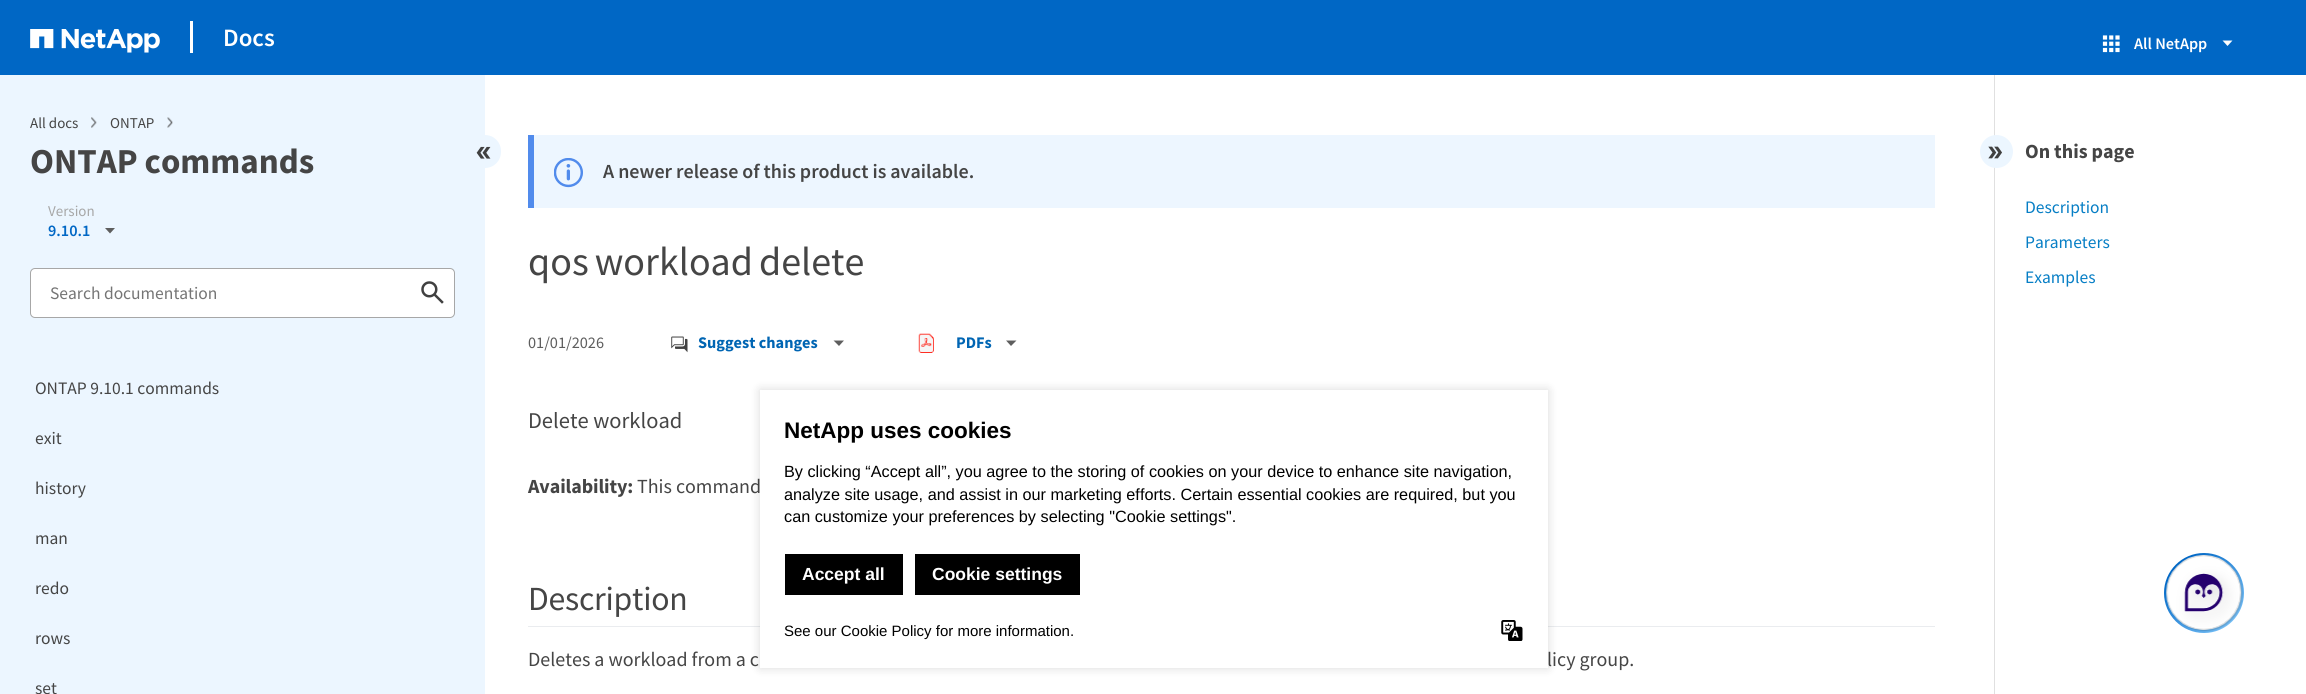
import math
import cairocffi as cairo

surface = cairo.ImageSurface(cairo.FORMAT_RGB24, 2306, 694)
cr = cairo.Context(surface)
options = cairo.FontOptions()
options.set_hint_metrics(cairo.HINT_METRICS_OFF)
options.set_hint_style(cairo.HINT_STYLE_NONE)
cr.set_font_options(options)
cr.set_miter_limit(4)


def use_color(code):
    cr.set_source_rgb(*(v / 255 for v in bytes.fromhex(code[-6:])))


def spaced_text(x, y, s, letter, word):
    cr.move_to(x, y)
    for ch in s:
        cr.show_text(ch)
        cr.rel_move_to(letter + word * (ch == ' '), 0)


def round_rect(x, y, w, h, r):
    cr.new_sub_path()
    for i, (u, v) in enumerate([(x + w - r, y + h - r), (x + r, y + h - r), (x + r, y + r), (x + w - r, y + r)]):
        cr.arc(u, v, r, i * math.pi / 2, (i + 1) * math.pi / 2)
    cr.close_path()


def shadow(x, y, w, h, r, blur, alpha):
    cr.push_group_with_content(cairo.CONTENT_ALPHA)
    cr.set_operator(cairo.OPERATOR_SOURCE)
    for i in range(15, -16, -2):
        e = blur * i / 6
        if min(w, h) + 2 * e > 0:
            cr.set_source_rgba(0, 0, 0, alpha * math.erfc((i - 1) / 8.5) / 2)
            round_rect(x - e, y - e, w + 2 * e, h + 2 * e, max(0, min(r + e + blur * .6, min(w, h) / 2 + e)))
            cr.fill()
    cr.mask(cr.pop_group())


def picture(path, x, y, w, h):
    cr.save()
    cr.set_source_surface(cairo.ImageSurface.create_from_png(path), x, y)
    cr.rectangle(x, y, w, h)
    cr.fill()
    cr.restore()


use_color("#ffffff")
cr.paint()
use_color("#0067c5")
cr.rectangle(0, 0, 2306, 75)
cr.fill()
picture("img1.png", 30, 29, 130, 24)
use_color("#ffffff")
cr.rectangle(190, 21, 3, 32)
cr.fill()
cr.select_font_face("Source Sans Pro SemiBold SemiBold")
cr.set_font_size(25)
cr.move_to(223, 46)
cr.show_text("Docs")
picture("img2.png", 2102, 35, 18, 18)
cr.set_font_size(16.25)
cr.move_to(2134, 49)
cr.show_text("All NetApp")
use_color("#fdfdfd")
cr.new_path()
cr.move_to(2227.5, 46)
cr.line_to(2222.5, 40.5)
cr.line_to(2232.5, 40.5)
cr.close_path()
cr.fill()
use_color("#ecf6ff")
cr.rectangle(0, 75, 485, 619)
cr.fill()
cr.select_font_face("Source Sans Pro")
cr.set_font_size(15)
use_color("#454545")
cr.move_to(30, 128)
cr.show_text("All docs")
picture("img3.png", 91, 117, 6, 11)
cr.move_to(110, 128)
cr.show_text("ONTAP")
picture("img4.png", 167, 117, 6, 11)
cr.select_font_face("Source Sans Pro", cairo.FONT_SLANT_NORMAL, cairo.FONT_WEIGHT_BOLD)
cr.set_font_size(35)
cr.move_to(30, 173)
cr.show_text("ONTAP commands")
use_color("#ecf6ff")
round_rect(469, 135, 32, 33, 16)
cr.fill()
picture("img5.png", 476, 146, 15, 13)
cr.select_font_face("Source Sans Pro")
cr.set_font_size(15)
use_color("#a7a7a7")
cr.move_to(48, 216)
cr.show_text("Version")
cr.select_font_face("Source Sans Pro SemiBold SemiBold")
cr.set_font_size(16.25)
use_color("#0067c5")
cr.move_to(48, 236)
cr.show_text("9.10.1")
use_color("#5e5e5e")
cr.new_path()
cr.move_to(110, 233.5)
cr.line_to(105, 228)
cr.line_to(115, 228)
cr.close_path()
cr.fill()
use_color("#ffffff")
round_rect(30.5, 268.5, 424, 49, 4.5)
cr.fill_preserve()
use_color("#a7a7a7")
cr.set_line_width(1)
cr.stroke()
cr.select_font_face("Source Sans Pro")
cr.set_font_size(17.5)
use_color("#757575")
cr.move_to(50, 299)
cr.show_text("Search documentation")
picture("img6.png", 421, 281, 23, 23)
use_color("#454545")
cr.move_to(35, 394)
cr.show_text("ONTAP 9.10.1 commands")
cr.move_to(35, 444)
cr.show_text("exit")
cr.move_to(35, 494)
cr.show_text("history")
cr.move_to(35, 544)
cr.show_text("man")
cr.move_to(35, 594)
cr.show_text("redo")
cr.move_to(35, 644)
cr.show_text("rows")
cr.move_to(35, 694)
cr.show_text("set")
use_color("#edf6ff")
cr.rectangle(534, 135, 1401, 73)
cr.fill()
use_color("#518bec")
cr.rectangle(528, 135, 6, 73)
cr.fill()
picture("img7.png", 554, 158, 29, 30)
cr.select_font_face("Source Sans Pro SemiBold SemiBold")
cr.set_font_size(20)
use_color("#454545")
cr.move_to(603, 178)
cr.show_text("A newer release of this product is available.")
cr.select_font_face("Source Sans Pro")
cr.set_font_size(40)
spaced_text(528, 275, "qos workload delete", 0, -2)
cr.set_font_size(16.25)
use_color("#5e5e5e")
cr.move_to(528, 348)
cr.show_text("01/01/2026")
picture("img8.png", 671, 336, 17, 17)
cr.select_font_face("Source Sans Pro", cairo.FONT_SLANT_NORMAL, cairo.FONT_WEIGHT_BOLD)
use_color("#0065b3")
cr.move_to(698, 348)
cr.show_text("Suggest changes")
use_color("#5e5e5e")
cr.new_path()
cr.move_to(839, 346)
cr.line_to(833.5, 340.5)
cr.line_to(844, 340.5)
cr.close_path()
cr.fill()
picture("img9.png", 918, 333, 16, 20)
use_color("#0065b3")
cr.move_to(956, 348)
cr.show_text("PDFs")
use_color("#5e5e5e")
cr.new_path()
cr.move_to(1011, 346)
cr.line_to(1006, 340.5)
cr.line_to(1016.5, 340.5)
cr.close_path()
cr.fill()
cr.select_font_face("Source Sans Pro")
cr.set_font_size(22.5)
use_color("#454545")
cr.move_to(528, 428)
cr.show_text("Delete workload")
cr.select_font_face("Source Sans Pro", cairo.FONT_SLANT_NORMAL, cairo.FONT_WEIGHT_BOLD)
cr.set_font_size(20)
spaced_text(528, 493, "Availability:", -0.1, 0)
cr.select_font_face("Source Sans Pro")
cr.move_to(637, 493)
cr.show_text("This command")
use_color("#eaecef")
cr.rectangle(528, 626, 1407, 1)
cr.fill()
cr.set_font_size(33.75)
use_color("#454545")
spaced_text(528, 610, "Description", -0.25, 0)
cr.set_font_size(20)
cr.move_to(528, 666)
cr.show_text("Deletes a workload from a c")
cr.move_to(1547, 666)
cr.show_text("licy group.")
use_color("#e0e0e0")
cr.rectangle(1994, 75, 1, 619)
cr.fill()
use_color("#ecf6ff")
cr.arc(1996.5, 151.5, 16.5, 0, 2 * math.pi)
cr.fill()
picture("img10.png", 1988, 146, 14, 13)
cr.select_font_face("Source Sans Pro", cairo.FONT_SLANT_NORMAL, cairo.FONT_WEIGHT_BOLD)
use_color("#454545")
cr.move_to(2025, 158)
cr.show_text("On this page")
cr.select_font_face("Source Sans Pro")
cr.set_font_size(17.5)
use_color("#067ec5")
cr.move_to(2025, 213)
cr.show_text("Description")
cr.move_to(2025, 248)
cr.show_text("Parameters")
cr.move_to(2025, 283)
cr.show_text("Examples")
gradient = cairo.LinearGradient(2164, 553, 2244, 633)
gradient.add_color_stop_rgba(0.18, 0, 0.404, 0.773, 1)
gradient.add_color_stop_rgba(0.89, 0.478, 0.765, 0.98, 1)
cr.set_source(gradient)
cr.new_path()
cr.arc(2204, 593, 40, 0, 2 * math.pi)
cr.fill()
picture("img11.png", 2166, 555, 77, 77)
use_color("#000000")
shadow(760, 390, 788, 278, 0, 5, 0.15)
use_color("#ffffff")
cr.rectangle(760, 390, 788, 278)
cr.fill()
cr.select_font_face("Liberation Sans", cairo.FONT_SLANT_NORMAL, cairo.FONT_WEIGHT_BOLD)
cr.set_font_size(22.5)
use_color("#000000")
cr.move_to(784, 438)
cr.show_text("NetApp uses cookies")
cr.select_font_face("Liberation Sans")
cr.set_font_size(16.25)
cr.move_to(784, 477)
cr.show_text("By clicking “Accept all”, you agree to the storing of cookies on your device to enhance site navigation,")
cr.move_to(784, 500)
cr.show_text("analyze site usage, and assist in our marketing efforts. Certain essential cookies are required, but you")
cr.move_to(784, 522)
cr.show_text("can customize your preferences by selecting \"Cookie settings\".")
cr.rectangle(785, 554, 118, 41)
cr.fill()
cr.select_font_face("Liberation Sans", cairo.FONT_SLANT_NORMAL, cairo.FONT_WEIGHT_BOLD)
cr.set_font_size(17.5)
use_color("#ffffff")
cr.move_to(802, 580)
cr.show_text("Accept all")
use_color("#000000")
cr.rectangle(915, 554, 165, 41)
cr.fill()
use_color("#ffffff")
cr.move_to(932, 580)
cr.show_text("Cookie settings")
cr.select_font_face("Liberation Sans")
cr.set_font_size(15)
use_color("#000000")
cr.move_to(784, 636)
cr.show_text("See our Cookie Policy for more information.")
picture("img12.png", 1501, 620, 22, 21)
surface.write_to_png("result.png")
